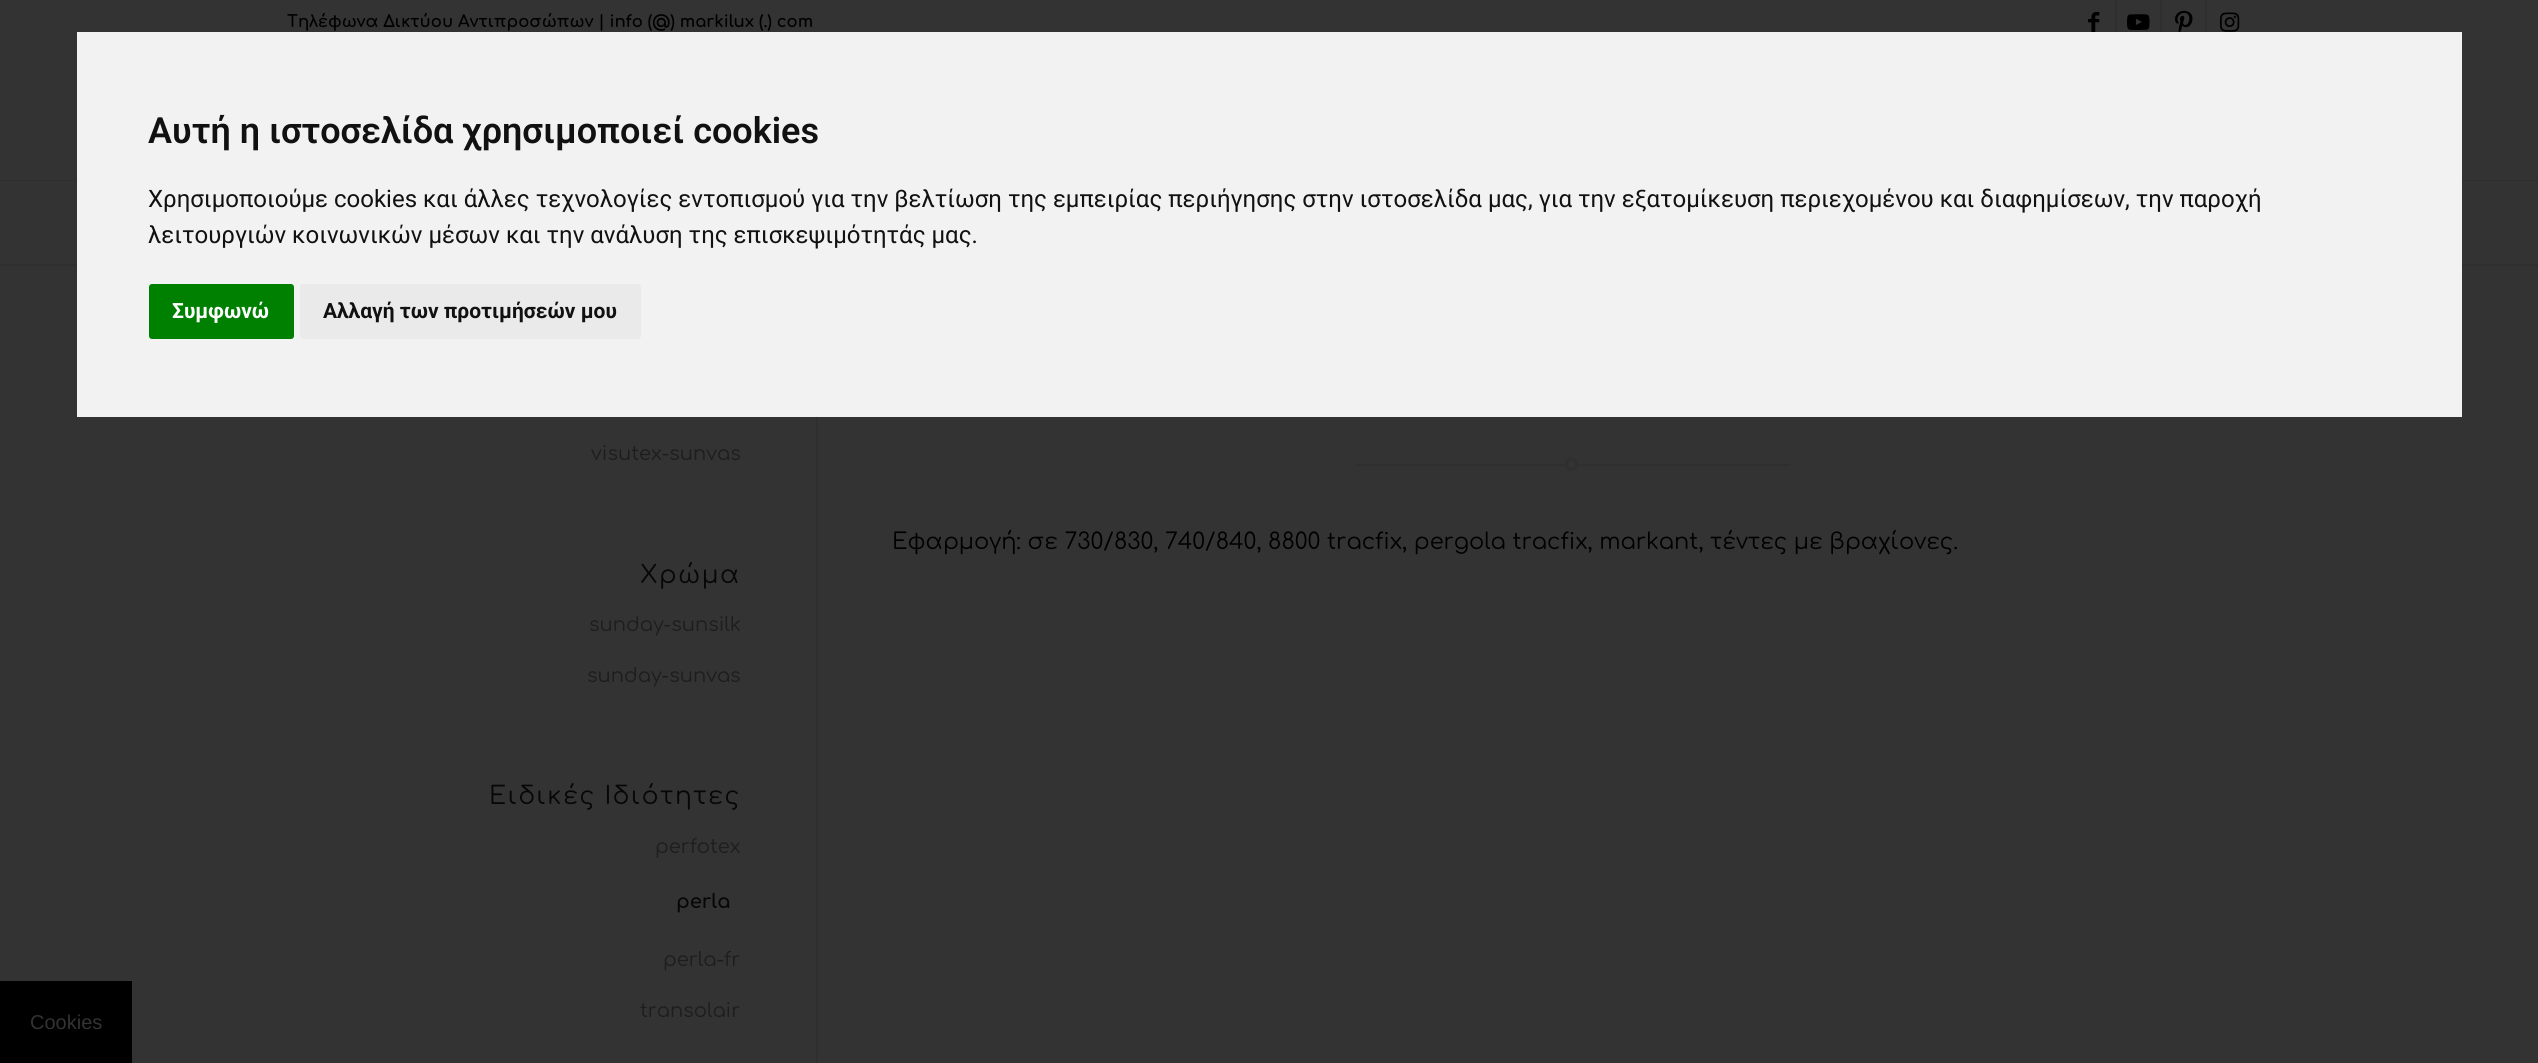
import math
import cairocffi as cairo

surface = cairo.ImageSurface(cairo.FORMAT_RGB24, 2538, 1063)
cr = cairo.Context(surface)
options = cairo.FontOptions()
options.set_hint_metrics(cairo.HINT_METRICS_OFF)
options.set_hint_style(cairo.HINT_STYLE_NONE)
cr.set_font_options(options)
cr.set_miter_limit(4)


def use_color(code):
    cr.set_source_rgb(*(v / 255 for v in bytes.fromhex(code[-6:])))


def spaced_text(x, y, s, letter, word):
    cr.move_to(x, y)
    for ch in s:
        cr.show_text(ch)
        cr.rel_move_to(letter + word * (ch == ' '), 0)


def round_rect(x, y, w, h, r):
    cr.new_sub_path()
    for i, (u, v) in enumerate([(x + w - r, y + h - r), (x + r, y + h - r), (x + r, y + r), (x + w - r, y + r)]):
        cr.arc(u, v, r, i * math.pi / 2, (i + 1) * math.pi / 2)
    cr.close_path()


def picture(path, x, y, w, h):
    cr.save()
    cr.set_source_surface(cairo.ImageSurface.create_from_png(path), x, y)
    cr.rectangle(x, y, w, h)
    cr.fill()
    cr.restore()


use_color("#333333")
cr.paint()
cr.select_font_face("Comfortaa", cairo.FONT_SLANT_NORMAL, cairo.FONT_WEIGHT_BOLD)
cr.set_font_size(16.5)
use_color("#000000")
cr.move_to(287, 27)
cr.show_text("Τηλέφωνα Δικτύου Αντιπροσώπων | info (@) markilux (.) com")
use_color("#2f2f2f")
cr.rectangle(2115, 0, 2, 32)
cr.fill()
picture("img1.png", 2088, 12, 12, 20)
cr.rectangle(2160, 0, 2, 32)
cr.fill()
picture("img2.png", 2127, 14, 23, 17)
cr.rectangle(2205, 0, 2, 32)
cr.fill()
picture("img3.png", 2175, 10, 18, 22)
picture("img4.png", 2220, 12, 20, 20)
cr.rectangle(0, 180, 2538, 1)
cr.fill()
cr.rectangle(0, 264, 2538, 2)
cr.fill()
cr.select_font_face("Comfortaa")
cr.set_font_size(19.5)
use_color("#1d1d1d")
cr.move_to(591, 460)
cr.show_text("visutex-sunvas")
cr.set_font_size(24.75)
use_color("#070707")
spaced_text(640, 583, "Χρώμα", 1.5, 0)
cr.set_font_size(19.5)
use_color("#1d1d1d")
cr.move_to(589, 631)
cr.show_text("sunday-sunsilk")
cr.move_to(587, 682)
cr.show_text("sunday-sunvas")
cr.set_font_size(24.75)
use_color("#070707")
spaced_text(489, 804, "Ειδικές Ιδιότητες", 1.5, 0)
cr.set_font_size(19.5)
use_color("#1d1d1d")
cr.move_to(655, 853)
cr.show_text("perfotex")
cr.select_font_face("Comfortaa", cairo.FONT_SLANT_NORMAL, cairo.FONT_WEIGHT_BOLD)
use_color("#070707")
cr.move_to(676, 908)
cr.show_text("perla")
cr.select_font_face("Comfortaa")
use_color("#1d1d1d")
cr.move_to(663, 966)
cr.show_text("perla-fr")
cr.move_to(640, 1017)
cr.show_text("transolair")
use_color("#2f2f2f")
cr.rectangle(816, 417, 2, 646)
cr.fill()
cr.rectangle(1355, 464, 435, 2)
cr.fill()
use_color("#333333")
cr.arc(1571.5, 464.5, 5, 0, 2 * math.pi)
cr.fill_preserve()
use_color("#2f2f2f")
cr.set_line_width(3)
cr.stroke()
cr.set_font_size(22.5)
use_color("#000000")
cr.move_to(892, 549)
cr.show_text("Εφαρμογή: σε 730/830, 740/840, 8800 tracfix, pergola tracfix, markant, τέντες με βραχίονες.")
use_color("#f2f2f2")
cr.rectangle(77, 32, 2385, 385)
cr.fill()
cr.select_font_face("Roboto SemiBold")
cr.set_font_size(36)
use_color("#111111")
cr.move_to(148, 143)
cr.show_text("Αυτή η ιστοσελίδα χρησιμοποιεί cookies")
cr.select_font_face("Roboto")
cr.set_font_size(24)
cr.move_to(148, 207)
cr.show_text("Χρησιμοποιούμε cookies και άλλες τεχνολογίες εντοπισμού για την βελτίωση της εμπειρίας περιήγησης στην ιστοσελίδα μας, για την εξατομίκευση περιεχομένου και διαφημίσεων, την παροχή")
cr.move_to(148, 243)
cr.show_text("λειτουργιών κοινωνικών μέσων και την ανάλυση της επισκεψιμότητάς μας.")
use_color("#008000")
round_rect(149, 284, 145, 55, 3)
cr.fill()
cr.select_font_face("Roboto", cairo.FONT_SLANT_NORMAL, cairo.FONT_WEIGHT_BOLD)
cr.set_font_size(21)
use_color("#ffffff")
cr.move_to(172, 318)
cr.show_text("Συμφωνώ")
use_color("#eaeaea")
round_rect(300, 284, 341, 55, 3)
cr.fill()
use_color("#111111")
cr.move_to(323, 318)
cr.show_text("Αλλαγή των προτιμήσεών μου")
use_color("#000000")
cr.rectangle(0, 981, 132, 82)
cr.fill()
cr.select_font_face("Liberation Sans")
cr.set_font_size(20)
use_color("#333333")
cr.move_to(30, 1029)
cr.show_text("Cookies")
surface.write_to_png("result.png")
